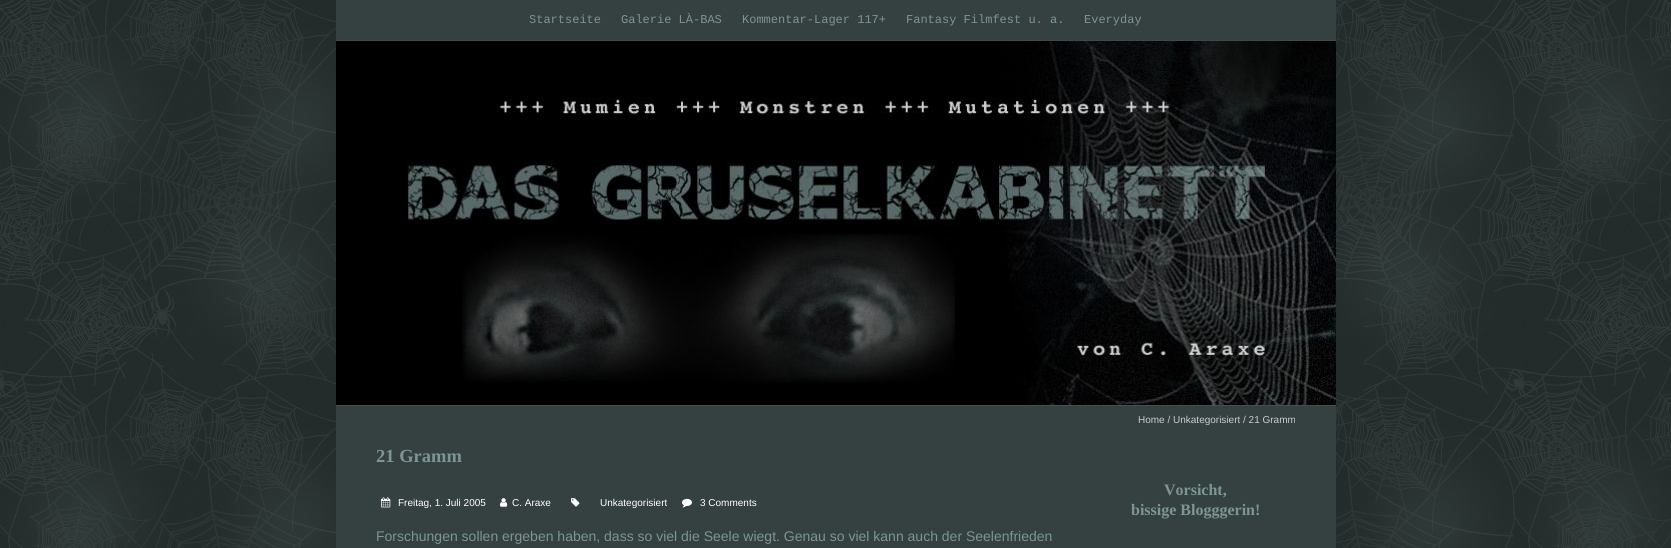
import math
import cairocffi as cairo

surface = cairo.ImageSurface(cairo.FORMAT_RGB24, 1671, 548)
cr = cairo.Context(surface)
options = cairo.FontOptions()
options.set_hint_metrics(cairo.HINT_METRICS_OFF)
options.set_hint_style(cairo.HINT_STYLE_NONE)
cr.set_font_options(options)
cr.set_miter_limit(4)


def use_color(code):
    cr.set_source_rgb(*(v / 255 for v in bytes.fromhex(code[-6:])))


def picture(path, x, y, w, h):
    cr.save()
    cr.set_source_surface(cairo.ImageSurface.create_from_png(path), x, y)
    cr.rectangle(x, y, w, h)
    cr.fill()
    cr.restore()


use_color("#ffffff")
cr.paint()
picture("img1.png", 0, 0, 1671, 548)
use_color("#354040")
cr.rectangle(336, 0, 1000, 548)
cr.fill()
use_color("#3f4a4a")
cr.rectangle(336, 40, 1000, 1)
cr.fill()
cr.select_font_face("Liberation Mono")
cr.set_font_size(12)
use_color("#7c9595")
cr.move_to(529, 23)
cr.show_text("Startseite")
cr.move_to(621, 23)
cr.show_text("Galerie LÀ-BAS")
cr.move_to(742, 23)
cr.show_text("Kommentar-Lager 117+")
cr.move_to(906, 23)
cr.show_text("Fantasy Filmfest u. a.")
cr.move_to(1084, 23)
cr.show_text("Everyday")
picture("img2.png", 336, 41, 1000, 364)
use_color("#454f4f")
cr.rectangle(336, 405, 1000, 1)
cr.fill()
cr.select_font_face("Liberation Sans")
cr.set_font_size(10)
use_color("#cccccc")
cr.move_to(1138, 423)
cr.show_text("Home / Unkategorisiert / 21 Gramm")
cr.select_font_face("Liberation Serif", cairo.FONT_SLANT_NORMAL, cairo.FONT_WEIGHT_BOLD)
cr.set_font_size(18.5)
use_color("#7c9595")
cr.move_to(376, 462)
cr.show_text("21 Gramm")
picture("img3.png", 381, 497, 10, 11)
cr.select_font_face("Liberation Sans")
cr.set_font_size(10)
use_color("#ffffff")
cr.move_to(398, 506)
cr.show_text("Freitag, 1. Juli 2005")
picture("img4.png", 500, 498, 8, 9)
cr.move_to(512, 506)
cr.show_text("C. Araxe")
picture("img5.png", 571, 498, 9, 9)
cr.move_to(600, 506)
cr.show_text("Unkategorisiert")
picture("img6.png", 682, 498, 10, 10)
cr.move_to(700, 506)
cr.show_text("3 Comments")
cr.set_font_size(14)
use_color("#7c9595")
cr.move_to(376, 541)
cr.show_text("Forschungen sollen ergeben haben, dass so viel die Seele wiegt. Genau so viel kann auch der Seelenfrieden")
cr.select_font_face("Liberation Serif", cairo.FONT_SLANT_NORMAL, cairo.FONT_WEIGHT_BOLD)
cr.set_font_size(16)
cr.move_to(1164, 495)
cr.show_text("Vorsicht,")
cr.move_to(1131, 515)
cr.show_text("bissige Blogggerin!")
surface.write_to_png("result.png")
